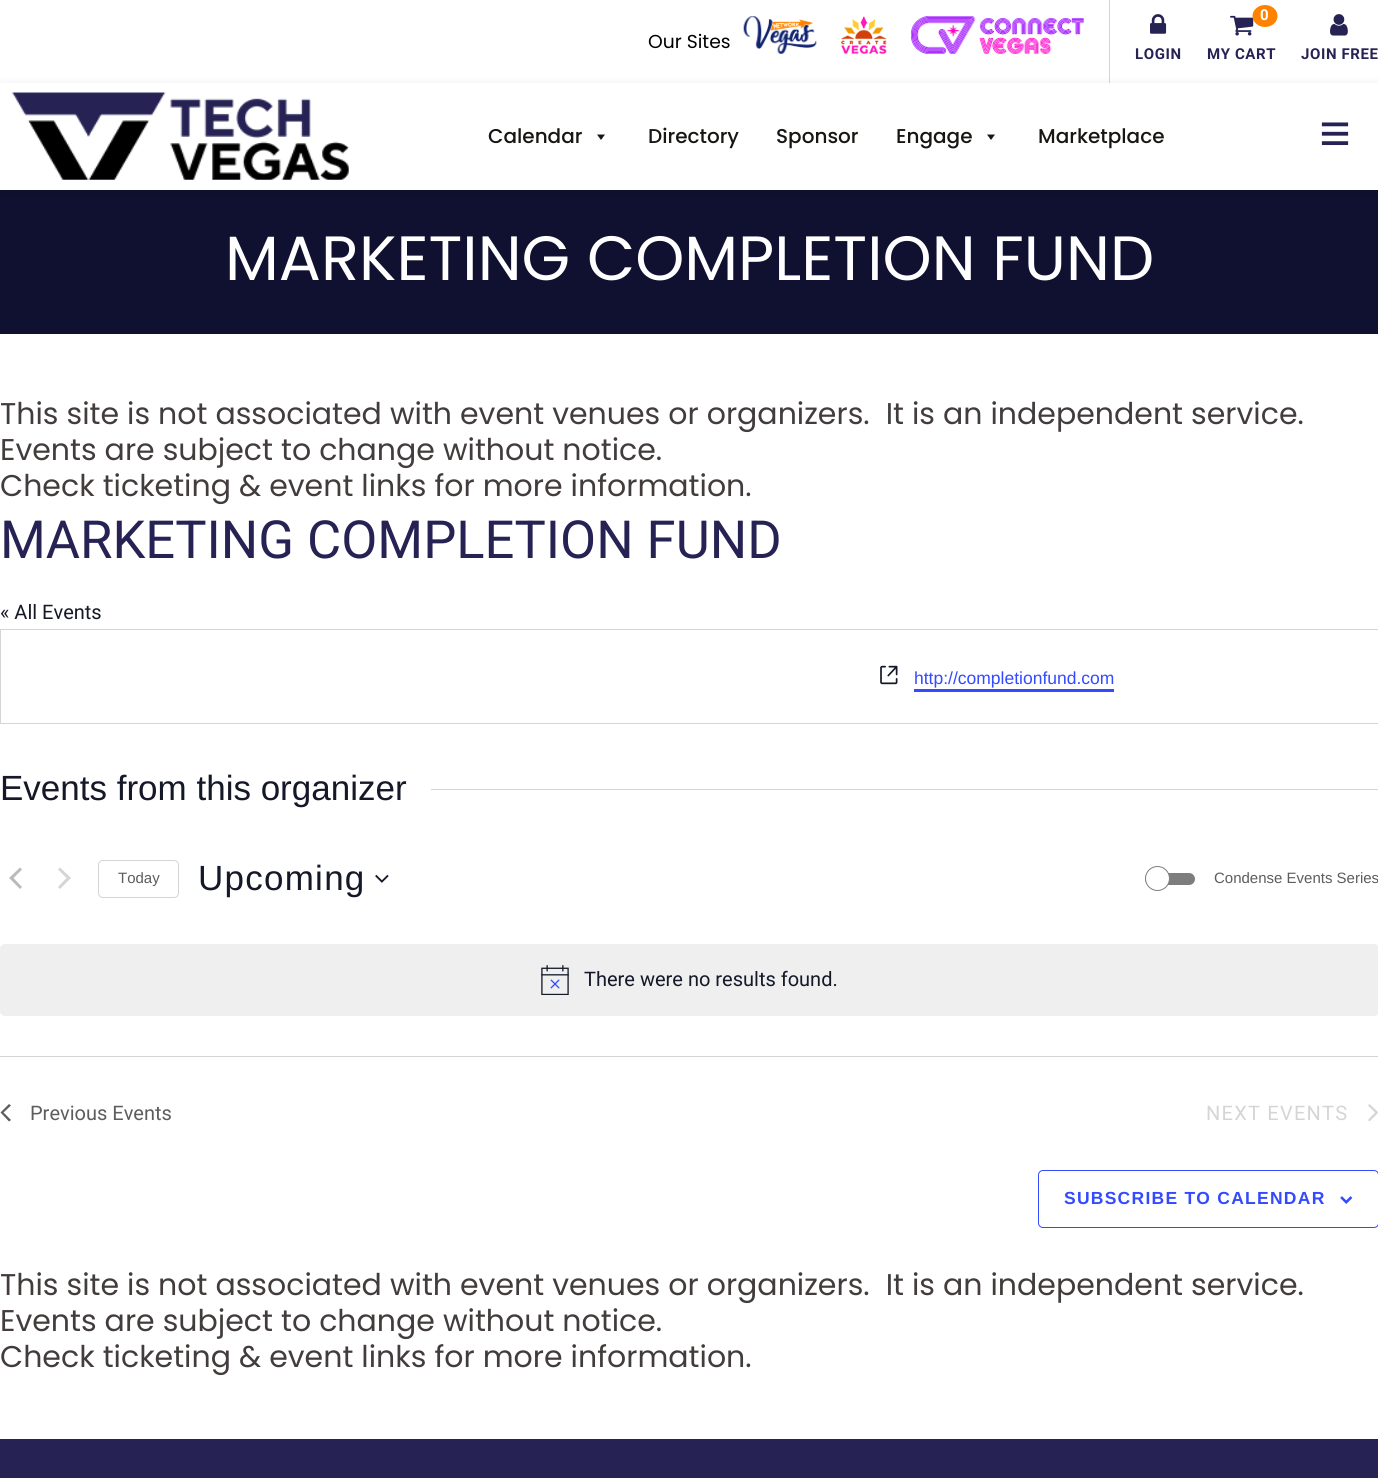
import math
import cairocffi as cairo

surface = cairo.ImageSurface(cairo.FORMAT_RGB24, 1378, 1478)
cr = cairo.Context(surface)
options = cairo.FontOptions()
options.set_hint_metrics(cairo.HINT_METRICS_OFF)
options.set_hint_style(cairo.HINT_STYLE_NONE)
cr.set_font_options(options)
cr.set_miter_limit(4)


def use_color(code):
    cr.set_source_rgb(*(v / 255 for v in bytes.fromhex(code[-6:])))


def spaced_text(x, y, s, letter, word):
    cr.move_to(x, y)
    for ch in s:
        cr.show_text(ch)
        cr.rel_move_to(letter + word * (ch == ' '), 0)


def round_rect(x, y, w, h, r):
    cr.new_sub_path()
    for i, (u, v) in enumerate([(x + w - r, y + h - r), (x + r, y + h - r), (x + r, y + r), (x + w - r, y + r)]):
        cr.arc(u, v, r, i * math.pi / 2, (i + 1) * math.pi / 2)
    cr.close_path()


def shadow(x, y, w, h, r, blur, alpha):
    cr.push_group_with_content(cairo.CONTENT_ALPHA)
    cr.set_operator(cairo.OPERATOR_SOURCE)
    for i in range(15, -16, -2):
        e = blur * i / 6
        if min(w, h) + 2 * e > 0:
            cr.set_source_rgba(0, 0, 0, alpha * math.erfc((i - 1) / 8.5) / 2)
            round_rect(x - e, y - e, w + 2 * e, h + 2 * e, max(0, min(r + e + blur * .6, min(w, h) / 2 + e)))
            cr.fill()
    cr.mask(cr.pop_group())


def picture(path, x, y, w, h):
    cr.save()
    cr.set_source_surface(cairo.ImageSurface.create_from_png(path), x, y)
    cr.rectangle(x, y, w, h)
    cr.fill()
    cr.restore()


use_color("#ffffff")
cr.paint()
cr.select_font_face("Poppins")
cr.set_font_size(18.75)
use_color("#000000")
cr.move_to(648, 48)
cr.show_text("Our Sites")
picture("img1.png", 743, 16, 74, 38)
picture("img2.png", 841, 16, 46, 38)
picture("img3.png", 911, 16, 173, 38)
use_color("#d5d5d5")
cr.rectangle(1109, 0, 1, 83)
cr.fill()
picture("img4.png", 1150, 14, 17, 20)
cr.select_font_face("Roboto", cairo.FONT_SLANT_NORMAL, cairo.FONT_WEIGHT_BOLD)
cr.set_font_size(15)
use_color("#262254")
spaced_text(1135, 59, "LOGIN", 0.6, 0)
picture("img5.png", 1230, 15, 24, 21)
use_color("#ff8300")
cr.new_path()
cr.move_to(1265, 5)
cr.curve_to(1272, 5, 1277.5, 10, 1277.5, 16)
cr.curve_to(1277.5, 22, 1272, 27, 1265, 27)
cr.curve_to(1258, 27, 1252.5, 22, 1252.5, 16)
cr.curve_to(1252.5, 10, 1258, 5, 1265, 5)
cr.close_path()
cr.fill()
use_color("#ffffff")
spaced_text(1260, 20, "0", 0.6, 0)
use_color("#262254")
spaced_text(1207, 59, "MY CART", 0.6, 0)
picture("img6.png", 1330, 14, 18, 22)
spaced_text(1301, 59, "JOIN FREE", 0.6, 0)
use_color("#101130")
cr.rectangle(0, 190, 1378, 144)
cr.fill()
use_color("#000000")
shadow(0, 85, 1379, 108, 0, 5, 0.1)
use_color("#ffffff")
cr.rectangle(0, 83, 1378, 107)
cr.fill()
picture("img7.png", 12, 92, 337, 88)
cr.select_font_face("Poppins Medium")
cr.set_font_size(20)
use_color("#181613")
cr.move_to(488, 143)
cr.show_text("Calendar")
cr.new_path()
cr.move_to(605, 134.5)
cr.line_to(601, 140)
cr.line_to(597, 134.5)
cr.close_path()
cr.fill()
cr.move_to(648, 143)
cr.show_text("Directory")
cr.move_to(776, 143)
cr.show_text("Sponsor")
cr.move_to(896, 143)
cr.show_text("Engage")
cr.new_path()
cr.move_to(995, 134.5)
cr.line_to(991, 140)
cr.line_to(987, 134.5)
cr.close_path()
cr.fill()
cr.move_to(1038, 143)
cr.show_text("Marketplace")
picture("img8.png", 1321, 122, 28, 24)
cr.select_font_face("Poppins")
cr.set_font_size(62.5)
use_color("#ffffff")
cr.move_to(225, 280)
cr.show_text("MARKETING COMPLETION FUND")
cr.set_font_size(30)
use_color("#423d3c")
cr.move_to(0, 424)
cr.show_text("This site is not associated with event venues or organizers.  It is an independent service.")
cr.move_to(0, 460)
cr.show_text("Events are subject to change without notice.")
cr.move_to(0, 496)
cr.show_text("Check ticketing & event links for more information.")
cr.select_font_face("Roboto")
cr.set_font_size(52.5)
use_color("#262254")
cr.move_to(0, 558)
cr.show_text("MARKETING COMPLETION FUND")
cr.set_font_size(20)
use_color("#141827")
cr.move_to(0, 619)
cr.show_text("« All Events")
cr.rectangle(0.5, 629.5, 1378, 94)
use_color("#d5d5d5")
cr.set_line_width(1)
cr.stroke()
picture("img9.png", 880, 665, 18, 20)
cr.select_font_face("Liberation Sans")
cr.set_font_size(17.5)
use_color("#334aff")
cr.move_to(914, 684)
cr.show_text("http://completionfund.com")
cr.rectangle(914, 689, 200, 3)
cr.fill()
cr.set_font_size(35)
use_color("#141827")
cr.move_to(0, 800)
cr.show_text("Events from this organizer")
use_color("#d5d5d5")
cr.rectangle(431, 789, 947, 1)
cr.fill()
use_color("#bababa")
cr.new_path()
cr.move_to(22, 887)
cr.line_to(20, 889)
cr.line_to(9, 878)
cr.line_to(20, 867.5)
cr.line_to(22, 869.5)
cr.line_to(13.5, 878)
cr.close_path()
cr.fill()
use_color("#d5d5d5")
cr.new_path()
cr.move_to(58, 869.5)
cr.line_to(60, 867.5)
cr.line_to(71, 878)
cr.line_to(60, 889)
cr.line_to(58, 887)
cr.line_to(66.5, 878)
cr.close_path()
cr.fill()
round_rect(98.5, 860.5, 80, 37, 4.5)
cr.stroke()
cr.set_font_size(15)
use_color("#5d5d5d")
cr.move_to(118, 883)
cr.show_text("Today")
cr.set_font_size(35)
use_color("#141827")
spaced_text(198, 890, "Upcoming", 1.25, 0)
picture("img10.png", 375, 874, 14, 9)
use_color("#7d7d7d")
round_rect(1145, 873, 50, 12, 6)
cr.fill()
use_color("#ffffff")
cr.arc(1157.5, 878.5, 12, 0, 2 * math.pi)
cr.fill_preserve()
use_color("#7d7d7d")
cr.stroke()
cr.set_font_size(15)
use_color("#5d5d5d")
cr.move_to(1214, 883)
cr.show_text("Condense Events Series")
use_color("#efeff0")
round_rect(0, 944, 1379, 72, 5)
cr.fill()
picture("img11.png", 541, 965, 28, 30)
cr.select_font_face("Roboto")
cr.set_font_size(20)
use_color("#141827")
cr.move_to(584, 986)
cr.show_text("There were no results found.")
use_color("#d5d5d5")
cr.rectangle(0, 1056, 1378, 1)
cr.fill()
use_color("#5d5d5d")
cr.new_path()
cr.move_to(11, 1120)
cr.line_to(9, 1121.5)
cr.line_to(0.5, 1112.5)
cr.line_to(9, 1104)
cr.line_to(11, 1105.5)
cr.line_to(3.5, 1112.5)
cr.close_path()
cr.fill()
cr.move_to(30, 1120)
cr.show_text("Previous Events")
use_color("#d5d5d5")
spaced_text(1206, 1120, "NEXT EVENTS", 1.25, 0)
cr.new_path()
cr.move_to(1368, 1105.5)
cr.line_to(1369.5, 1104)
cr.line_to(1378.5, 1112.5)
cr.line_to(1369.5, 1121.5)
cr.line_to(1368, 1120)
cr.line_to(1375, 1112.5)
cr.close_path()
cr.fill()
round_rect(1038.5, 1170.5, 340, 57, 4.5)
use_color("#334aff")
cr.stroke()
cr.select_font_face("Liberation Sans", cairo.FONT_SLANT_NORMAL, cairo.FONT_WEIGHT_BOLD)
cr.set_font_size(17.5)
spaced_text(1064, 1204, "SUBSCRIBE TO CALENDAR", 1.25, 0)
picture("img12.png", 1340, 1196, 13, 8)
cr.select_font_face("Poppins")
cr.set_font_size(30)
use_color("#423d3c")
cr.move_to(0, 1295)
cr.show_text("This site is not associated with event venues or organizers.  It is an independent service.")
cr.move_to(0, 1331)
cr.show_text("Events are subject to change without notice.")
cr.move_to(0, 1367)
cr.show_text("Check ticketing & event links for more information.")
use_color("#262254")
cr.rectangle(0, 1439, 1378, 39)
cr.fill()
surface.write_to_png("result.png")
